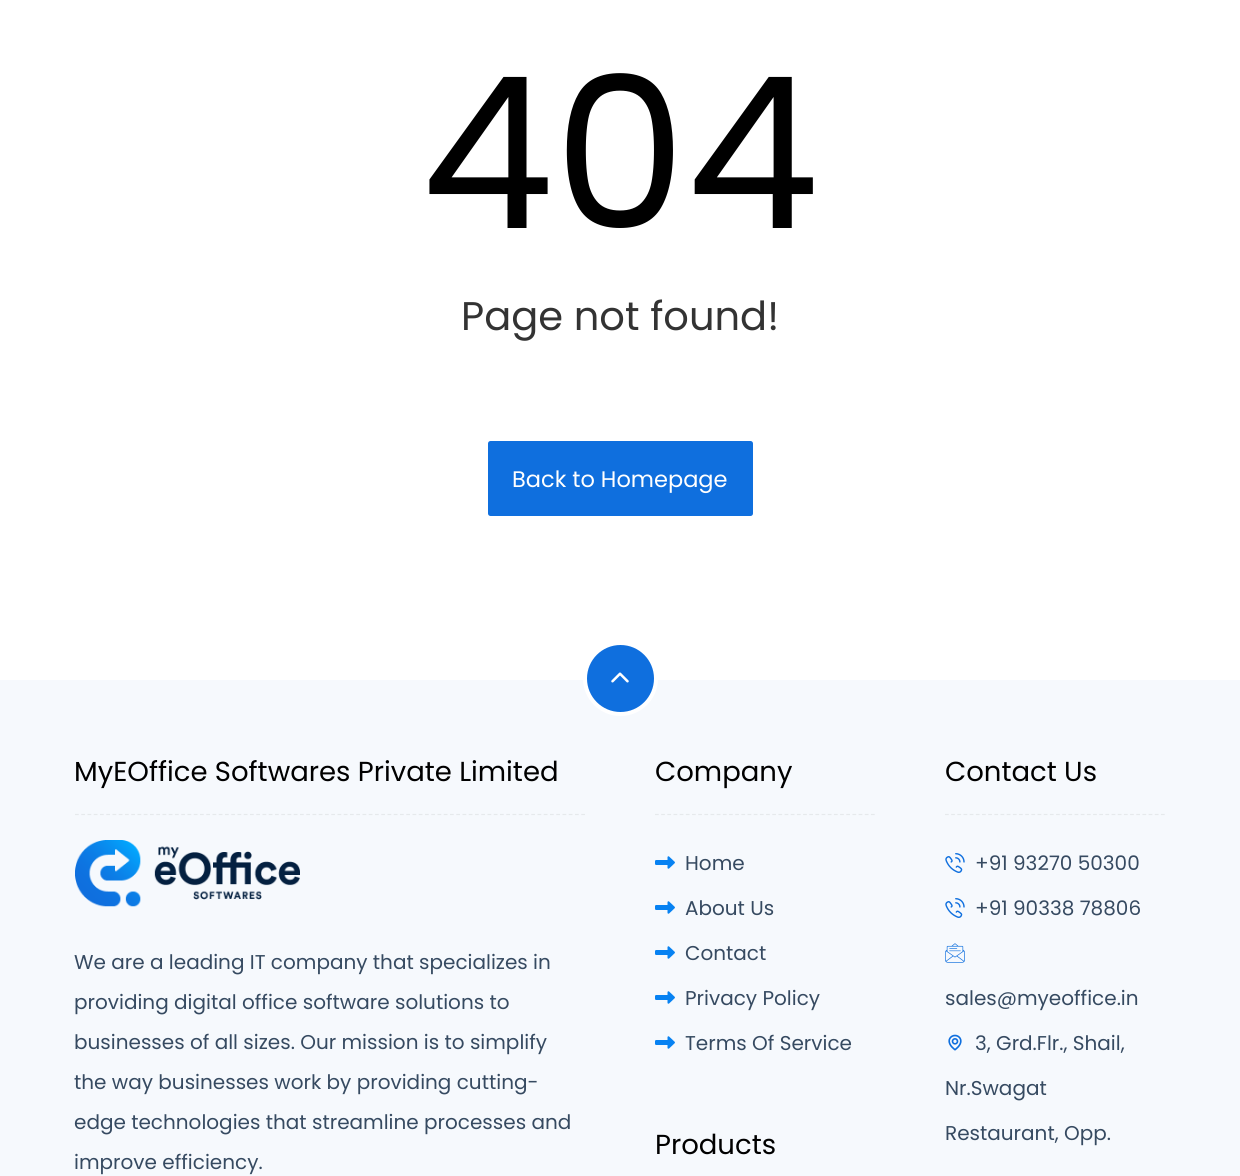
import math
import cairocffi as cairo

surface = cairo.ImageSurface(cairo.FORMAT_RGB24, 1240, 1176)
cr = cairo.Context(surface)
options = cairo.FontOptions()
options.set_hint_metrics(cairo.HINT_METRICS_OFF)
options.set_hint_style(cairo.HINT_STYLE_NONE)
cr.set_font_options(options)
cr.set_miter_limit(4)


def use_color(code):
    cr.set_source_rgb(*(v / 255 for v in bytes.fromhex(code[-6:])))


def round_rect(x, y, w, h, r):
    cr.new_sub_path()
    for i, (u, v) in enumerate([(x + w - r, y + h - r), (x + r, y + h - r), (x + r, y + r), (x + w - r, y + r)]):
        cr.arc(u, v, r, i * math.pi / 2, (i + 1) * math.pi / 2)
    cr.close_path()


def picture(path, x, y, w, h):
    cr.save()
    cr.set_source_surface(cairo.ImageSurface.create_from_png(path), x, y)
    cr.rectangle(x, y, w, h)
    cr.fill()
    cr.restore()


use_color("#ffffff")
cr.paint()
cr.select_font_face("Poppins")
cr.set_font_size(211)
use_color("#000000")
cr.move_to(421, 228)
cr.show_text("404")
cr.set_font_size(40)
use_color("#333333")
cr.move_to(461, 330)
cr.show_text("Page not found!")
use_color("#0f6fde")
round_rect(488, 441, 265, 75, 2.5)
cr.fill()
cr.set_font_size(22.5)
use_color("#ffffff")
cr.move_to(512, 487)
cr.show_text("Back to Homepage")
use_color("#f6f9fd")
cr.rectangle(0, 680, 1240, 496)
cr.fill()
use_color("#0f6fde")
cr.arc(620.5, 678.5, 35.5, 0, 2 * math.pi)
cr.fill_preserve()
use_color("#ffffff")
cr.set_line_width(4)
cr.stroke()
picture("img1.png", 611, 672, 18, 11)
cr.new_path()
cr.move_to(75, 814.5)
cr.line_to(585, 814.5)
use_color("#e6e9ec")
cr.set_line_width(1.2)
cr.set_dash([3.75, 2.5])
cr.stroke()
cr.set_font_size(27.5)
use_color("#000000")
cr.move_to(74, 781)
cr.show_text("MyEOffice Softwares Private Limited")
picture("img2.png", 75, 840, 225, 67)
cr.set_font_size(20)
use_color("#364a61")
cr.move_to(74, 969)
cr.show_text("We are a leading IT company that specializes in")
cr.move_to(74, 1009)
cr.show_text("providing digital office software solutions to")
cr.move_to(74, 1049)
cr.show_text("businesses of all sizes. Our mission is to simplify")
cr.move_to(74, 1089)
cr.show_text("the way businesses work by providing cutting-")
cr.move_to(74, 1129)
cr.show_text("edge technologies that streamline processes and")
cr.move_to(74, 1169)
cr.show_text("improve efficiency.")
cr.new_path()
cr.move_to(655, 814.5)
cr.line_to(875, 814.5)
use_color("#e6e9ec")
cr.set_dash([3.75, 2.42])
cr.stroke()
cr.set_font_size(27.5)
use_color("#000000")
cr.move_to(655, 781)
cr.show_text("Company")
picture("img3.png", 655, 856, 20, 13)
cr.set_font_size(20)
use_color("#364a61")
cr.move_to(685, 870)
cr.show_text("Home")
picture("img3.png", 655, 901, 20, 13)
cr.move_to(685, 915)
cr.show_text("About Us")
picture("img3.png", 655, 946, 20, 13)
cr.move_to(685, 960)
cr.show_text("Contact")
picture("img3.png", 655, 991, 20, 13)
cr.move_to(685, 1005)
cr.show_text("Privacy Policy")
picture("img3.png", 655, 1036, 20, 13)
cr.move_to(685, 1050)
cr.show_text("Terms Of Service")
cr.set_font_size(27.5)
use_color("#000000")
cr.move_to(655, 1154)
cr.show_text("Products")
cr.new_path()
cr.move_to(945, 814.5)
cr.line_to(1165, 814.5)
use_color("#e6e9ec")
cr.stroke()
use_color("#000000")
cr.move_to(945, 781)
cr.show_text("Contact Us")
picture("img4.png", 945, 853, 20, 20)
cr.set_font_size(20)
use_color("#364a61")
cr.move_to(975, 870)
cr.show_text("+91 93270 50300")
picture("img4.png", 945, 898, 20, 20)
cr.move_to(975, 915)
cr.show_text("+91 90338 78806")
picture("img5.png", 945, 943, 20, 20)
cr.move_to(945, 1005)
cr.show_text("sales@myeoffice.in")
picture("img6.png", 948, 1034, 14, 17)
cr.move_to(975, 1050)
cr.show_text("3, Grd.Flr., Shail,")
cr.move_to(945, 1095)
cr.show_text("Nr.Swagat")
cr.move_to(945, 1140)
cr.show_text("Restaurant, Opp.")
surface.write_to_png("result.png")
